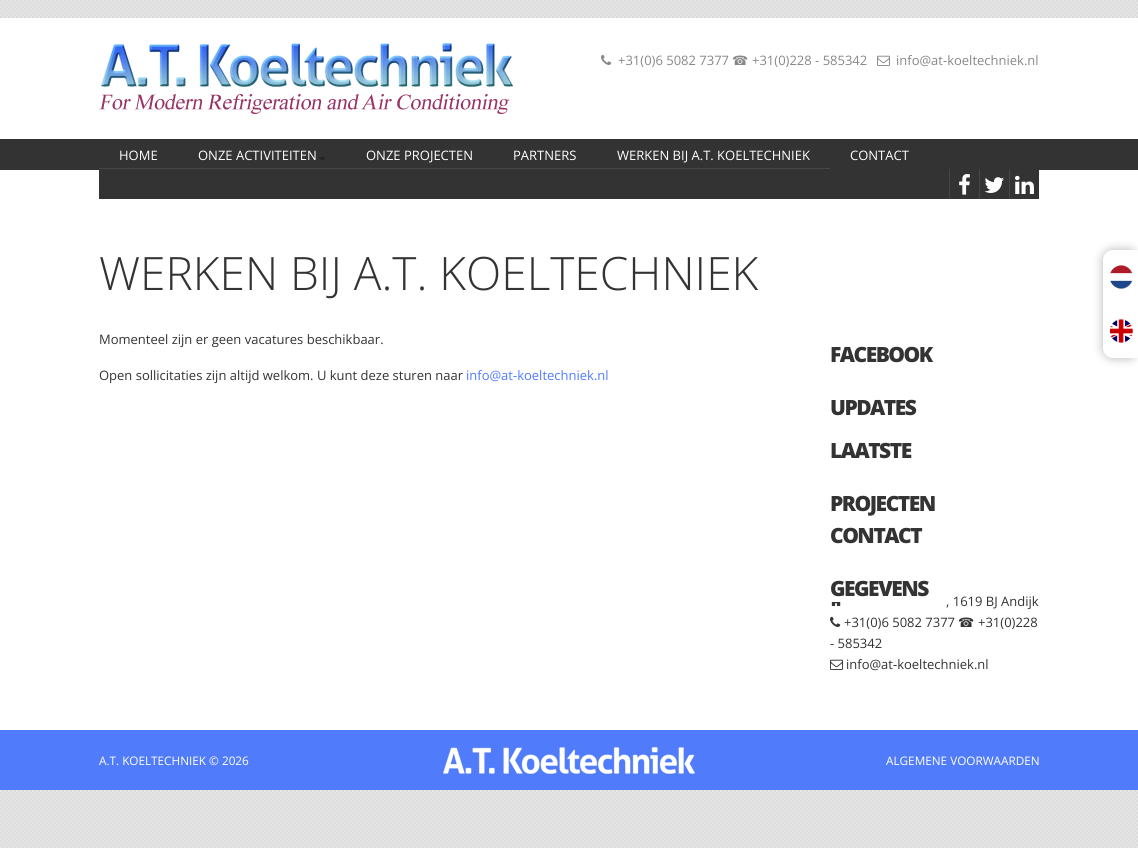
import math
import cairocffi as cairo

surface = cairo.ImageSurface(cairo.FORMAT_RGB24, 1138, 848)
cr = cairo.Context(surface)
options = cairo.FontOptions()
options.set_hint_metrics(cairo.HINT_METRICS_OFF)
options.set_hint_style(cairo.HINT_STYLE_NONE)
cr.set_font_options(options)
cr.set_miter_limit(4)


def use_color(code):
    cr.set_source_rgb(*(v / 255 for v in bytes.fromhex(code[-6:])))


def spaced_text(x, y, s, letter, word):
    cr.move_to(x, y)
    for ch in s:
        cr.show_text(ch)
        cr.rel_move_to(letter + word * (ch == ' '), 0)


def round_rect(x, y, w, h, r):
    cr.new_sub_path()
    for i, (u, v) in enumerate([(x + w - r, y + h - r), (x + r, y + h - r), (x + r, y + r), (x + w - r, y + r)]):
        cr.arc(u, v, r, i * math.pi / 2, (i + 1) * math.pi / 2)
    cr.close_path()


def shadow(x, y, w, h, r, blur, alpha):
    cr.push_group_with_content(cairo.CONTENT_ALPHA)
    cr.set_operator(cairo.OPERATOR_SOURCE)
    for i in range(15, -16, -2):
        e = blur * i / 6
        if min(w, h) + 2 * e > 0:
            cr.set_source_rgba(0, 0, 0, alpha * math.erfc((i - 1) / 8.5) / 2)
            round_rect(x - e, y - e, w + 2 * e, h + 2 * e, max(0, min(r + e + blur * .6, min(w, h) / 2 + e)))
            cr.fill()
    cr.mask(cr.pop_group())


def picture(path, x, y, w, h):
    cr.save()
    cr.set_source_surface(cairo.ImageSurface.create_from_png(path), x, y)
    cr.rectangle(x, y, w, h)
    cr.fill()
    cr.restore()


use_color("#ffffff")
cr.paint()
picture("img1.png", 0, 0, 1138, 848)
use_color("#ffffff")
cr.rectangle(0, 18, 1138, 712)
cr.fill()
picture("img2.png", 99, 43, 414, 71)
picture("img3.png", 601, 54, 11, 11)
cr.select_font_face("Open Sans")
cr.set_font_size(13)
use_color("#888888")
cr.move_to(618, 65)
cr.show_text("+31(0)6 5082 7377")
cr.select_font_face("DejaVu Sans")
cr.move_to(732, 65)
cr.show_text("☎")
cr.select_font_face("Open Sans")
cr.move_to(752, 65)
cr.show_text("+31(0)228 - 585342")
picture("img4.png", 877, 55, 13, 11)
cr.move_to(896, 65)
cr.show_text("info@at-koeltechniek.nl")
use_color("#333333")
cr.rectangle(0, 139, 1138, 31)
cr.fill()
cr.rectangle(99, 170, 940, 29)
cr.fill()
use_color("#474747")
cr.rectangle(99, 168, 731, 1)
cr.fill()
use_color("#ffffff")
cr.move_to(119, 160)
cr.show_text("HOME")
cr.move_to(198, 160)
cr.show_text("ONZE ACTIVITEITEN")
use_color("#242424")
cr.new_path()
cr.move_to(318, 157)
cr.line_to(326, 157)
cr.line_to(322, 161)
cr.close_path()
cr.fill()
use_color("#ffffff")
cr.move_to(366, 160)
cr.show_text("ONZE PROJECTEN")
cr.move_to(513, 160)
cr.show_text("PARTNERS")
cr.move_to(617, 160)
cr.show_text("WERKEN BIJ A.T. KOELTECHNIEK")
cr.move_to(850, 160)
cr.show_text("CONTACT")
use_color("#474747")
cr.rectangle(949, 169, 1, 30)
cr.fill()
picture("img5.png", 959, 174, 11, 21)
cr.rectangle(979, 169, 1, 30)
cr.fill()
picture("img6.png", 984, 177, 20, 16)
cr.rectangle(1009, 169, 1, 30)
cr.fill()
picture("img7.png", 1015, 175, 19, 19)
cr.select_font_face("Open Sans Light")
cr.set_font_size(46)
use_color("#333333")
cr.move_to(99, 290)
cr.show_text("WERKEN BIJ A.T. KOELTECHNIEK")
cr.select_font_face("Open Sans")
cr.set_font_size(13)
cr.move_to(99, 344)
cr.show_text("Momenteel zijn er geen vacatures beschikbaar.")
cr.move_to(99, 380)
cr.show_text("Open sollicitaties zijn altijd welkom. U kunt deze sturen naar")
use_color("#507cfb")
cr.move_to(466, 380)
cr.show_text("info@at-koeltechniek.nl")
cr.select_font_face("Open Sans ExtraBold")
cr.set_font_size(21)
use_color("#333333")
spaced_text(830, 362, "FACEBOOK", -1.5, 0)
spaced_text(830, 415, "UPDATES", -1.5, 0)
spaced_text(830, 458, "LAATSTE", -1.5, 0)
spaced_text(830, 511, "PROJECTEN", -1.5, 0)
spaced_text(830, 543, "CONTACT", -1.5, 0)
spaced_text(830, 596, "GEGEVENS", -1.5, 0)
picture("img8.png", 830, 602, 12, 4)
cr.select_font_face("Open Sans")
cr.set_font_size(13)
cr.move_to(946, 606)
cr.show_text(", 1619 BJ Andijk")
picture("img9.png", 830, 616, 11, 11)
cr.move_to(844, 627)
cr.show_text("+31(0)6 5082 7377")
cr.select_font_face("DejaVu Sans")
cr.move_to(958, 627)
cr.show_text("☎")
cr.select_font_face("Open Sans")
cr.move_to(978, 627)
cr.show_text("+31(0)228")
cr.move_to(830, 648)
cr.show_text("- 585342")
picture("img10.png", 830, 659, 13, 11)
cr.move_to(846, 669)
cr.show_text("info@at-koeltechniek.nl")
use_color("#000000")
shadow(1103, 250, 35, 108, 10, 5, 0.3)
use_color("#ffffff")
cr.new_path()
cr.move_to(1113, 250)
cr.line_to(1138, 250)
cr.line_to(1138, 358)
cr.line_to(1113, 358)
cr.curve_to(1107.5, 358, 1103, 353.5, 1103, 348)
cr.line_to(1103, 260)
cr.curve_to(1103, 254.5, 1107.5, 250, 1113, 250)
cr.close_path()
cr.fill()
picture("img11.png", 1110, 265, 23, 24)
picture("img12.png", 1110, 319, 23, 24)
use_color("#507cfb")
cr.rectangle(0, 730, 1138, 60)
cr.fill()
picture("img13.png", 443, 747, 252, 27)
cr.set_font_size(11.75)
use_color("#ffffff")
cr.move_to(99, 765)
cr.show_text("A.T. KOELTECHNIEK © 2026")
cr.move_to(886, 765)
cr.show_text("ALGEMENE VOORWAARDEN")
surface.write_to_png("result.png")
